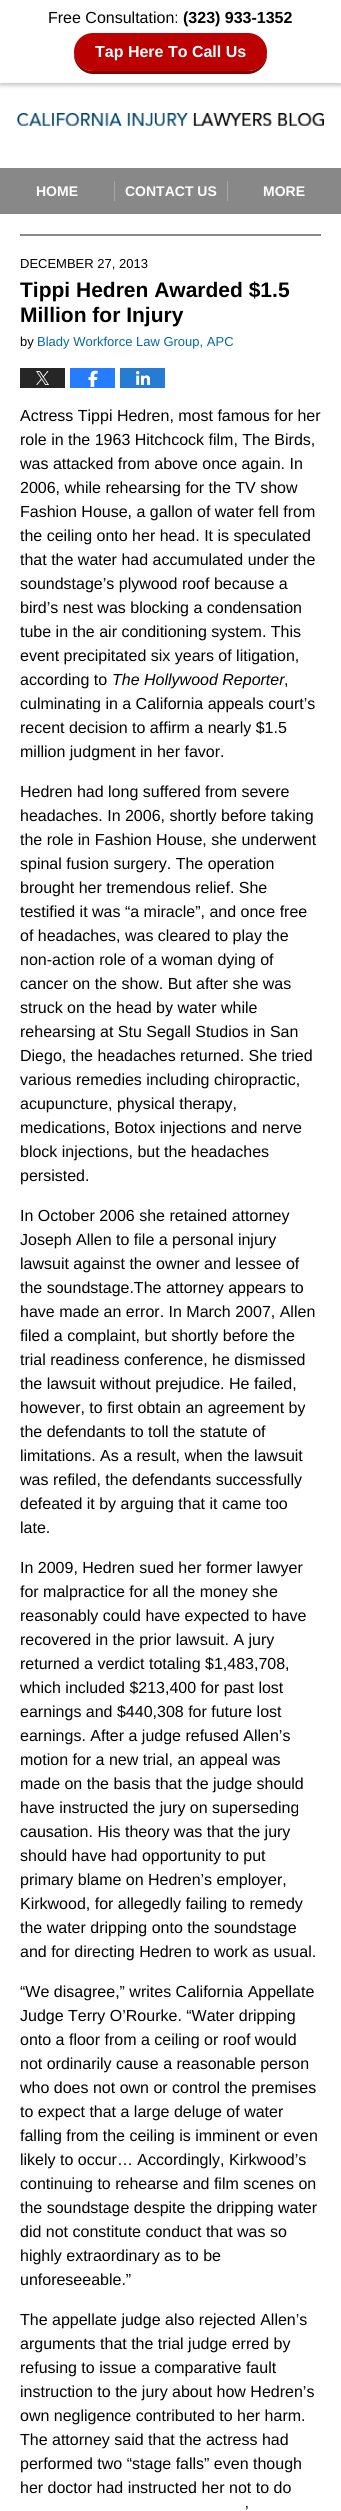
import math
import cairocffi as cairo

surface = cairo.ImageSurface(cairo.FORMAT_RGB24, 341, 2511)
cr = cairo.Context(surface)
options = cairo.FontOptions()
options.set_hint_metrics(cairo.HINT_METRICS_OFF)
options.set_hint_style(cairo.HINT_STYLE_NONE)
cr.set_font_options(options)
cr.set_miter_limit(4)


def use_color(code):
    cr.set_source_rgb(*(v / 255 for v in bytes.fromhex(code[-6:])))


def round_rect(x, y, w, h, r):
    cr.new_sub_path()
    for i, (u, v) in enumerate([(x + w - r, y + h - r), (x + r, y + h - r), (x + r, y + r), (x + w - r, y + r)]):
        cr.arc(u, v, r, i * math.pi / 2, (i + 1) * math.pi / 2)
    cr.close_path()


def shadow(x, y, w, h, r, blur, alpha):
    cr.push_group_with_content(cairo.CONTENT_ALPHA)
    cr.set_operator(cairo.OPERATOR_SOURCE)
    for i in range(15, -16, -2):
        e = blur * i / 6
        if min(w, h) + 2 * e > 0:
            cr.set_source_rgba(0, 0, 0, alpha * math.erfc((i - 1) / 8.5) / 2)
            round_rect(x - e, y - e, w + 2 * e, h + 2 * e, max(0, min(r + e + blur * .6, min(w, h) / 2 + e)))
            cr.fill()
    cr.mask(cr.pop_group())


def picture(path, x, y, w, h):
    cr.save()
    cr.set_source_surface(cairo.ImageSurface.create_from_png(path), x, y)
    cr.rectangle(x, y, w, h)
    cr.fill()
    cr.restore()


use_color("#ffffff")
cr.paint()
cr.save()
cr.rectangle(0, 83, 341, 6)
cr.clip()
use_color("#000000")
shadow(0, 2, 341, 83, 0, 2.5, 0.26)
cr.restore()
cr.select_font_face("Liberation Sans")
cr.set_font_size(16)
use_color("#000000")
cr.move_to(48, 23)
cr.show_text("Free Consultation:")
cr.select_font_face("Liberation Sans", cairo.FONT_SLANT_NORMAL, cairo.FONT_WEIGHT_BOLD)
cr.move_to(183, 23)
cr.show_text("(323) 933-1352")
use_color("#870000")
cr.new_path()
cr.move_to(74, 53)
cr.line_to(74, 55)
cr.curve_to(74, 65, 83, 74, 93, 74)
cr.line_to(248, 74)
cr.curve_to(258, 74, 267, 65, 267, 55)
cr.line_to(267, 53)
cr.curve_to(266, 63, 258, 71, 248, 71)
cr.line_to(93, 71)
cr.curve_to(83, 71, 75, 63, 74, 53)
cr.close_path()
cr.fill()
use_color("#ba0000")
round_rect(74, 33, 193, 38, 19)
cr.fill()
use_color("#ffffff")
cr.move_to(95, 57)
cr.show_text("Tap Here To Call Us")
picture("img1.png", 17, 113, 307, 13)
use_color("#888888")
cr.rectangle(0, 168, 341, 46)
cr.fill()
cr.set_font_size(14)
use_color("#ffffff")
cr.move_to(36, 196)
cr.show_text("HOME")
use_color("#a5a5a5")
cr.rectangle(114, 181, 1, 20)
cr.fill()
use_color("#ffffff")
cr.move_to(125, 196)
cr.show_text("CONTACT US")
use_color("#a5a5a5")
cr.rectangle(227, 181, 1, 20)
cr.fill()
use_color("#ffffff")
cr.move_to(263, 196)
cr.show_text("MORE")
use_color("#888888")
cr.rectangle(20, 234, 301, 2)
cr.fill()
cr.select_font_face("Liberation Sans")
cr.set_font_size(13)
use_color("#000000")
cr.move_to(20, 268)
cr.show_text("DECEMBER 27, 2013")
cr.select_font_face("Liberation Sans", cairo.FONT_SLANT_NORMAL, cairo.FONT_WEIGHT_BOLD)
cr.set_font_size(21)
cr.move_to(20, 297)
cr.show_text("Tippi Hedren Awarded $1.5")
cr.move_to(20, 322)
cr.show_text("Million for Injury")
cr.select_font_face("Liberation Sans")
cr.set_font_size(13)
cr.move_to(20, 346)
cr.show_text("by")
use_color("#05689f")
cr.move_to(37, 346)
cr.show_text("Blady Workforce Law Group, APC")
picture("img2.png", 20, 368, 45, 20)
picture("img3.png", 70, 368, 45, 20)
picture("img4.png", 120, 368, 45, 20)
cr.set_font_size(16)
use_color("#000000")
cr.move_to(20, 421)
cr.show_text("Actress Tippi Hedren, most famous for her")
cr.move_to(20, 445)
cr.show_text("role in the 1963 Hitchcock film, The Birds,")
cr.move_to(20, 469)
cr.show_text("was attacked from above once again. In")
cr.move_to(20, 493)
cr.show_text("2006, while rehearsing for the TV show")
cr.move_to(20, 517)
cr.show_text("Fashion House, a gallon of water fell from")
cr.move_to(20, 541)
cr.show_text("the ceiling onto her head. It is speculated")
cr.move_to(20, 565)
cr.show_text("that the water had accumulated under the")
cr.move_to(20, 589)
cr.show_text("soundstage’s plywood roof because a")
cr.move_to(20, 613)
cr.show_text("bird’s nest was blocking a condensation")
cr.move_to(20, 637)
cr.show_text("tube in the air conditioning system. This")
cr.move_to(20, 661)
cr.show_text("event precipitated six years of litigation,")
cr.move_to(20, 685)
cr.show_text("according to")
cr.select_font_face("Liberation Sans", cairo.FONT_SLANT_ITALIC)
cr.move_to(112, 685)
cr.show_text("The Hollywood Reporter")
cr.select_font_face("Liberation Sans")
cr.move_to(284, 685)
cr.show_text(",")
cr.move_to(20, 709)
cr.show_text("culminating in a California appeals court’s")
cr.move_to(20, 733)
cr.show_text("recent decision to affirm a nearly $1.5")
cr.move_to(20, 757)
cr.show_text("million judgment in her favor.")
cr.move_to(20, 797)
cr.show_text("Hedren had long suffered from severe")
cr.move_to(20, 821)
cr.show_text("headaches. In 2006, shortly before taking")
cr.move_to(20, 845)
cr.show_text("the role in Fashion House, she underwent")
cr.move_to(20, 869)
cr.show_text("spinal fusion surgery. The operation")
cr.move_to(20, 893)
cr.show_text("brought her tremendous relief. She")
cr.move_to(20, 917)
cr.show_text("testified it was “a miracle”, and once free")
cr.move_to(20, 941)
cr.show_text("of headaches, was cleared to play the")
cr.move_to(20, 965)
cr.show_text("non-action role of a woman dying of")
cr.move_to(20, 989)
cr.show_text("cancer on the show. But after she was")
cr.move_to(20, 1013)
cr.show_text("struck on the head by water while")
cr.move_to(20, 1037)
cr.show_text("rehearsing at Stu Segall Studios in San")
cr.move_to(20, 1061)
cr.show_text("Diego, the headaches returned. She tried")
cr.move_to(20, 1085)
cr.show_text("various remedies including chiropractic,")
cr.move_to(20, 1109)
cr.show_text("acupuncture, physical therapy,")
cr.move_to(20, 1133)
cr.show_text("medications, Botox injections and nerve")
cr.move_to(20, 1157)
cr.show_text("block injections, but the headaches")
cr.move_to(20, 1181)
cr.show_text("persisted.")
cr.move_to(20, 1221)
cr.show_text("In October 2006 she retained attorney")
cr.move_to(20, 1245)
cr.show_text("Joseph Allen to file a personal injury")
cr.move_to(20, 1269)
cr.show_text("lawsuit against the owner and lessee of")
cr.move_to(20, 1293)
cr.show_text("the soundstage.The attorney appears to")
cr.move_to(20, 1317)
cr.show_text("have made an error. In March 2007, Allen")
cr.move_to(20, 1341)
cr.show_text("filed a complaint, but shortly before the")
cr.move_to(20, 1365)
cr.show_text("trial readiness conference, he dismissed")
cr.move_to(20, 1389)
cr.show_text("the lawsuit without prejudice. He failed,")
cr.move_to(20, 1413)
cr.show_text("however, to first obtain an agreement by")
cr.move_to(20, 1437)
cr.show_text("the defendants to toll the statute of")
cr.move_to(20, 1461)
cr.show_text("limitations. As a result, when the lawsuit")
cr.move_to(20, 1485)
cr.show_text("was refiled, the defendants successfully")
cr.move_to(20, 1509)
cr.show_text("defeated it by arguing that it came too")
cr.move_to(20, 1533)
cr.show_text("late.")
cr.move_to(20, 1573)
cr.show_text("In 2009, Hedren sued her former lawyer")
cr.move_to(20, 1597)
cr.show_text("for malpractice for all the money she")
cr.move_to(20, 1621)
cr.show_text("reasonably could have expected to have")
cr.move_to(20, 1645)
cr.show_text("recovered in the prior lawsuit. A jury")
cr.move_to(20, 1669)
cr.show_text("returned a verdict totaling $1,483,708,")
cr.move_to(20, 1693)
cr.show_text("which included $213,400 for past lost")
cr.move_to(20, 1717)
cr.show_text("earnings and $440,308 for future lost")
cr.move_to(20, 1741)
cr.show_text("earnings. After a judge refused Allen’s")
cr.move_to(20, 1765)
cr.show_text("motion for a new trial, an appeal was")
cr.move_to(20, 1789)
cr.show_text("made on the basis that the judge should")
cr.move_to(20, 1813)
cr.show_text("have instructed the jury on superseding")
cr.move_to(20, 1837)
cr.show_text("causation. His theory was that the jury")
cr.move_to(20, 1861)
cr.show_text("should have had opportunity to put")
cr.move_to(20, 1885)
cr.show_text("primary blame on Hedren’s employer,")
cr.move_to(20, 1909)
cr.show_text("Kirkwood, for allegedly failing to remedy")
cr.move_to(20, 1933)
cr.show_text("the water dripping onto the soundstage")
cr.move_to(20, 1957)
cr.show_text("and for directing Hedren to work as usual.")
cr.move_to(20, 1997)
cr.show_text("“We disagree,” writes California Appellate")
cr.move_to(20, 2021)
cr.show_text("Judge Terry O’Rourke. “Water dripping")
cr.move_to(20, 2045)
cr.show_text("onto a floor from a ceiling or roof would")
cr.move_to(20, 2069)
cr.show_text("not ordinarily cause a reasonable person")
cr.move_to(20, 2093)
cr.show_text("who does not own or control the premises")
cr.move_to(20, 2117)
cr.show_text("to expect that a large deluge of water")
cr.move_to(20, 2141)
cr.show_text("falling from the ceiling is imminent or even")
cr.move_to(20, 2165)
cr.show_text("likely to occur… Accordingly, Kirkwood’s")
cr.move_to(20, 2189)
cr.show_text("continuing to rehearse and film scenes on")
cr.move_to(20, 2213)
cr.show_text("the soundstage despite the dripping water")
cr.move_to(20, 2237)
cr.show_text("did not constitute conduct that was so")
cr.move_to(20, 2261)
cr.show_text("highly extraordinary as to be")
cr.move_to(20, 2285)
cr.show_text("unforeseeable.”")
cr.move_to(20, 2325)
cr.show_text("The appellate judge also rejected Allen’s")
cr.move_to(20, 2349)
cr.show_text("arguments that the trial judge erred by")
cr.move_to(20, 2373)
cr.show_text("refusing to issue a comparative fault")
cr.move_to(20, 2397)
cr.show_text("instruction to the jury about how Hedren’s")
cr.move_to(20, 2421)
cr.show_text("own negligence contributed to her harm.")
cr.move_to(20, 2445)
cr.show_text("The attorney said that the actress had")
cr.move_to(20, 2469)
cr.show_text("performed two “stage falls” even though")
cr.move_to(20, 2493)
cr.show_text("her doctor had instructed her not to do")
cr.move_to(245, 2517)
cr.show_text("’")
surface.write_to_png("result.png")
